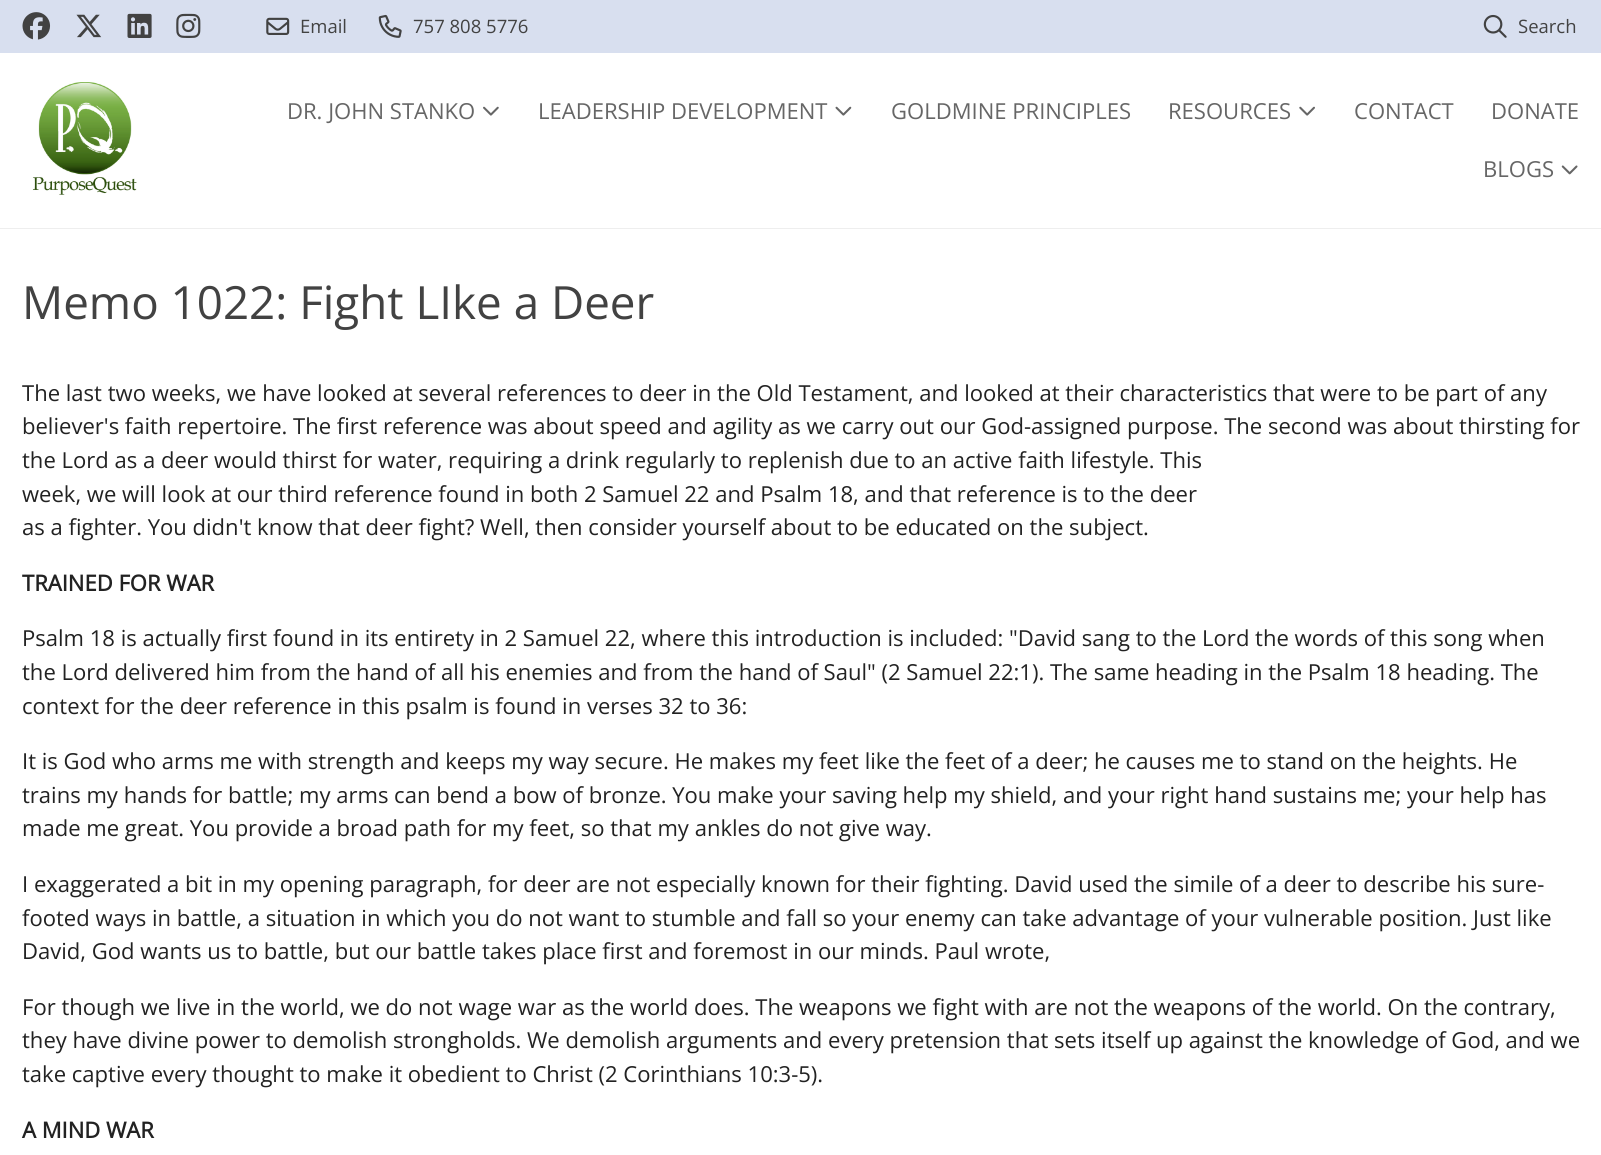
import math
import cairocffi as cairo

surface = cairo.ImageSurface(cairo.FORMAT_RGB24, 1601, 1155)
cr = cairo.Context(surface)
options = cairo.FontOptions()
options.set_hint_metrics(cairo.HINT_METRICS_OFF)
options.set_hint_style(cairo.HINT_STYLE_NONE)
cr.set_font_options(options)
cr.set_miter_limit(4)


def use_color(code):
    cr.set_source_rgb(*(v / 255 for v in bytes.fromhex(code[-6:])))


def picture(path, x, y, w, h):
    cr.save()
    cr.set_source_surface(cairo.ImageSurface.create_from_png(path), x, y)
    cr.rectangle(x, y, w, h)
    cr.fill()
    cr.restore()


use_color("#ffffff")
cr.paint()
use_color("#eeeeee")
cr.rectangle(0, 228, 1601, 1)
cr.fill()
use_color("#d8dfef")
cr.rectangle(0, 0, 1601, 53)
cr.fill()
picture("img1.png", 22, 12, 29, 28)
picture("img2.png", 76, 14, 26, 24)
picture("img3.png", 127, 13, 25, 25)
picture("img4.png", 176, 13, 25, 25)
picture("img5.png", 266, 17, 24, 18)
cr.select_font_face("Open Sans")
cr.set_font_size(18.5)
use_color("#424242")
cr.move_to(300, 33)
cr.show_text("Email")
picture("img6.png", 378, 14, 24, 24)
cr.move_to(413, 33)
cr.show_text("757 808 5776")
picture("img7.png", 1483, 14, 24, 24)
cr.move_to(1518, 33)
cr.show_text("Search")
picture("img8.png", 32, 82, 105, 113)
cr.set_font_size(22.05)
use_color("#666666")
cr.move_to(287, 119)
cr.show_text("DR. JOHN STANKO")
picture("img9.png", 483, 106, 16, 10)
cr.move_to(538, 119)
cr.show_text("LEADERSHIP DEVELOPMENT")
picture("img10.png", 835, 106, 17, 10)
cr.move_to(891, 119)
cr.show_text("GOLDMINE PRINCIPLES")
cr.move_to(1168, 119)
cr.show_text("RESOURCES")
picture("img11.png", 1299, 106, 16, 10)
cr.move_to(1354, 119)
cr.show_text("CONTACT")
cr.move_to(1491, 119)
cr.show_text("DONATE")
cr.move_to(1483, 177)
cr.show_text("BLOGS")
picture("img12.png", 1561, 165, 17, 10)
cr.set_font_size(45.75)
use_color("#424242")
cr.move_to(22, 319)
cr.show_text("Memo 1022: Fight LIke a Deer")
cr.set_font_size(22.05)
use_color("#222222")
cr.move_to(22, 401)
cr.show_text("The last two weeks, we have looked at several references to deer in the Old Testament, and looked at their characteristics that were to be part of any")
cr.move_to(22, 434)
cr.show_text("believer's faith repertoire. The first reference was about speed and agility as we carry out our God-assigned purpose. The second was about thirsting for")
cr.move_to(22, 468)
cr.show_text("the Lord as a deer would thirst for water, requiring a drink regularly to replenish due to an active faith lifestyle. This")
cr.move_to(22, 502)
cr.show_text("week, we will look at our third reference found in both 2 Samuel 22 and Psalm 18, and that reference is to the deer")
cr.move_to(22, 535)
cr.show_text("as a fighter. You didn't know that deer fight? Well, then consider yourself about to be educated on the subject.")
cr.select_font_face("Open Sans", cairo.FONT_SLANT_NORMAL, cairo.FONT_WEIGHT_BOLD)
cr.move_to(22, 591)
cr.show_text("TRAINED FOR WAR")
cr.select_font_face("Open Sans")
cr.move_to(22, 646)
cr.show_text("Psalm 18 is actually first found in its entirety in 2 Samuel 22, where this introduction is included: \"David sang to the Lord the words of this song when")
cr.move_to(22, 680)
cr.show_text("the Lord delivered him from the hand of all his enemies and from the hand of Saul\" (2 Samuel 22:1). The same heading in the Psalm 18 heading. The")
cr.move_to(22, 714)
cr.show_text("context for the deer reference in this psalm is found in verses 32 to 36:")
cr.move_to(22, 769)
cr.show_text("It is God who arms me with strength and keeps my way secure. He makes my feet like the feet of a deer; he causes me to stand on the heights. He")
cr.move_to(22, 803)
cr.show_text("trains my hands for battle; my arms can bend a bow of bronze. You make your saving help my shield, and your right hand sustains me; your help has")
cr.move_to(22, 836)
cr.show_text("made me great. You provide a broad path for my feet, so that my ankles do not give way.")
cr.move_to(22, 892)
cr.show_text("I exaggerated a bit in my opening paragraph, for deer are not especially known for their fighting. David used the simile of a deer to describe his sure-")
cr.move_to(22, 926)
cr.show_text("footed ways in battle, a situation in which you do not want to stumble and fall so your enemy can take advantage of your vulnerable position. Just like")
cr.move_to(22, 959)
cr.show_text("David, God wants us to battle, but our battle takes place first and foremost in our minds. Paul wrote,")
cr.move_to(22, 1015)
cr.show_text("For though we live in the world, we do not wage war as the world does. The weapons we fight with are not the weapons of the world. On the contrary,")
cr.move_to(22, 1048)
cr.show_text("they have divine power to demolish strongholds. We demolish arguments and every pretension that sets itself up against the knowledge of God, and we")
cr.move_to(22, 1082)
cr.show_text("take captive every thought to make it obedient to Christ (2 Corinthians 10:3-5).")
cr.select_font_face("Open Sans", cairo.FONT_SLANT_NORMAL, cairo.FONT_WEIGHT_BOLD)
cr.move_to(22, 1138)
cr.show_text("A MIND WAR")
surface.write_to_png("result.png")
